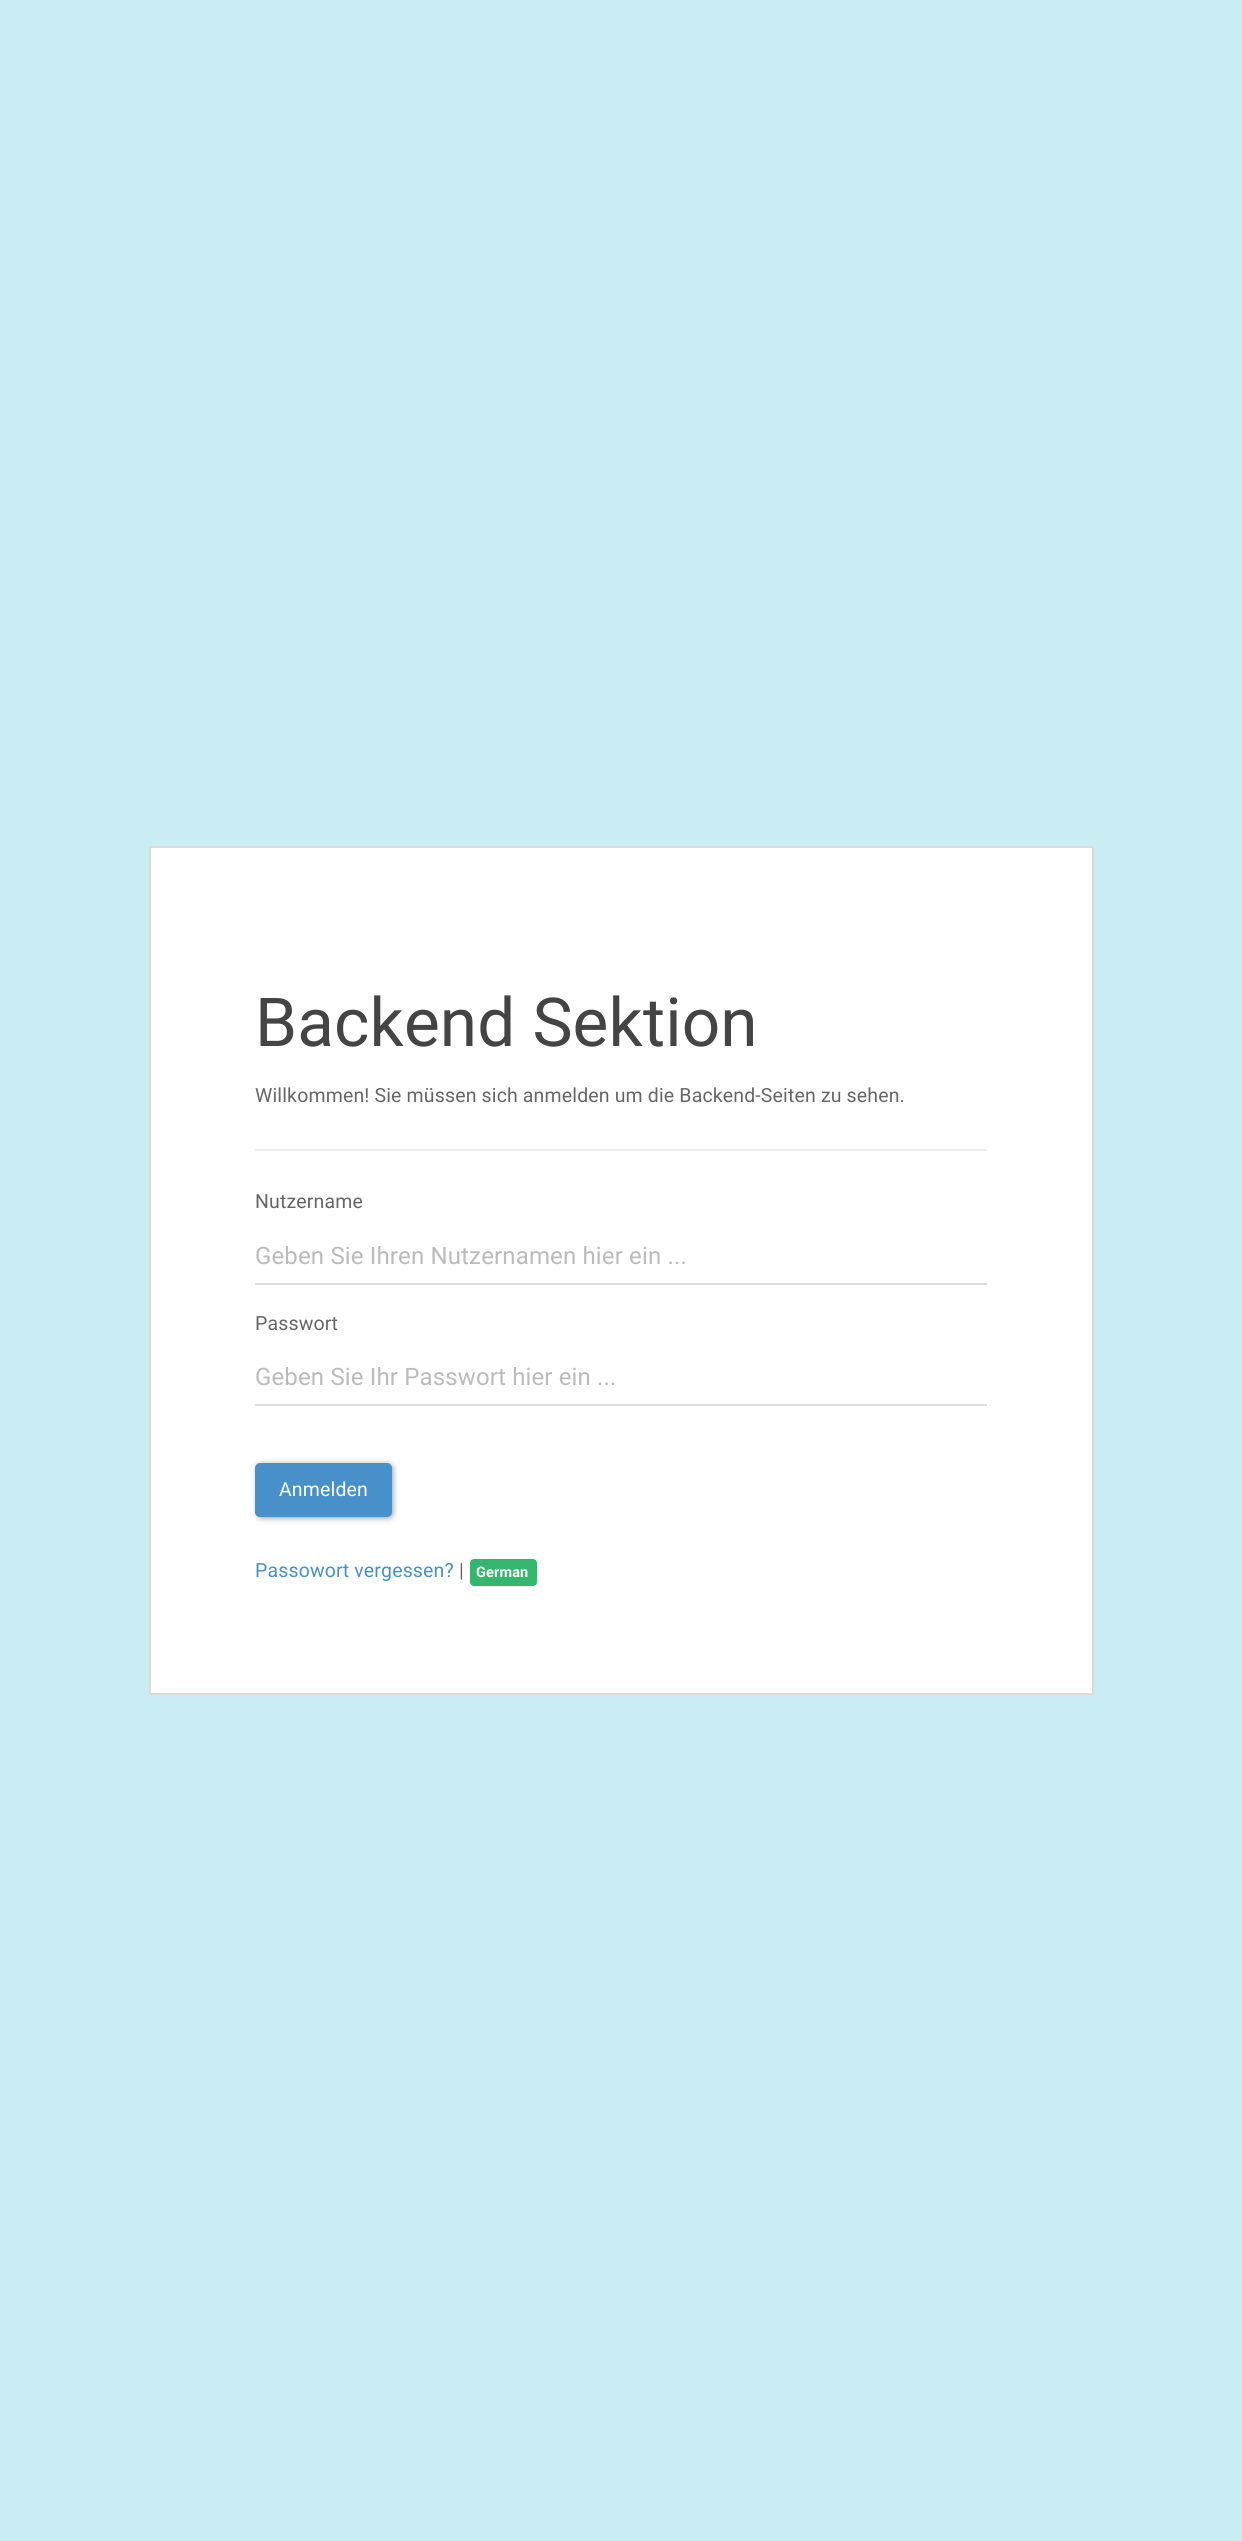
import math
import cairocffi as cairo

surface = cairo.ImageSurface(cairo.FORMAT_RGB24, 1242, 2541)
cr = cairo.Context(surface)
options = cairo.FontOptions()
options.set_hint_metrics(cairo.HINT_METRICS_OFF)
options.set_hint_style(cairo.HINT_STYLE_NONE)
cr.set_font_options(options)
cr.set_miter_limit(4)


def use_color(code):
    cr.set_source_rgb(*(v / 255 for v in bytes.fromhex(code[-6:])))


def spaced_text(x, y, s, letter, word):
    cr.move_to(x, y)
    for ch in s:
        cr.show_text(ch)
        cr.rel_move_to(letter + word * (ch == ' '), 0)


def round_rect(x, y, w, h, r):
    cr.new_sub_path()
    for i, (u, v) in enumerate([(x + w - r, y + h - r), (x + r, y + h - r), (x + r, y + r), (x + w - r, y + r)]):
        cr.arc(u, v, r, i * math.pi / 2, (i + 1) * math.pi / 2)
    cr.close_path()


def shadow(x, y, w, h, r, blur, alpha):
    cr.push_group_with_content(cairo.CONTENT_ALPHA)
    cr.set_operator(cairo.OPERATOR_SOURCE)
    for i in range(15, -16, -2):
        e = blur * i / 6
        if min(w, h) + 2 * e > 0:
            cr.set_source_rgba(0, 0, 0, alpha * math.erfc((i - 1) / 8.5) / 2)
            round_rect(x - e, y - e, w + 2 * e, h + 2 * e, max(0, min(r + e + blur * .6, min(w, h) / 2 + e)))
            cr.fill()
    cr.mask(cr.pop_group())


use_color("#caedf3")
cr.paint()
use_color("#ffffff")
cr.rectangle(150, 847, 943, 847)
cr.fill_preserve()
use_color("#dddada")
cr.stroke()
cr.select_font_face("Roboto")
cr.set_font_size(67.5)
use_color("#444444")
spaced_text(255, 1046, "Backend Sektion", 0.15, 0)
cr.set_font_size(19.5)
use_color("#666666")
spaced_text(255, 1102, "Willkommen! Sie müssen sich anmelden um die Backend-Seiten zu sehen.", 0.15, 0)
use_color("#eeeeee")
cr.rectangle(255, 1149, 732, 2)
cr.fill()
use_color("#666666")
spaced_text(255, 1208, "Nutzername", 0.15, 0)
use_color("#dddddd")
cr.rectangle(255, 1283, 732, 2)
cr.fill()
cr.set_font_size(24)
use_color("#bbbbbb")
spaced_text(255, 1264, "Geben Sie Ihren Nutzernamen hier ein ...", 0.15, 0)
cr.set_font_size(19.5)
use_color("#666666")
spaced_text(255, 1330, "Passwort", 0.15, 0)
use_color("#dddddd")
cr.rectangle(255, 1404, 732, 2)
cr.fill()
cr.set_font_size(24)
use_color("#bbbbbb")
spaced_text(255, 1385, "Geben Sie Ihr Passwort hier ein ...", 0.15, 0)
use_color("#000000")
shadow(257, 1464, 136, 54, 5, 3, 0.4)
use_color("#4790ca")
round_rect(255, 1463, 137, 54, 5)
cr.fill()
cr.set_font_size(19.5)
use_color("#ffffff")
spaced_text(279, 1496, "Anmelden", 0.15, 0)
use_color("#4790ca")
spaced_text(255, 1577, "Passowort vergessen?", 0.15, 0)
use_color("#666666")
spaced_text(459, 1577, "|", 0.15, 0)
use_color("#35b66f")
round_rect(470, 1559, 67, 27, 4)
cr.fill()
cr.select_font_face("Roboto", cairo.FONT_SLANT_NORMAL, cairo.FONT_WEIGHT_BOLD)
cr.set_font_size(14.5)
use_color("#ffffff")
spaced_text(476, 1577, "German", 0.15, 0)
surface.write_to_png("result.png")
